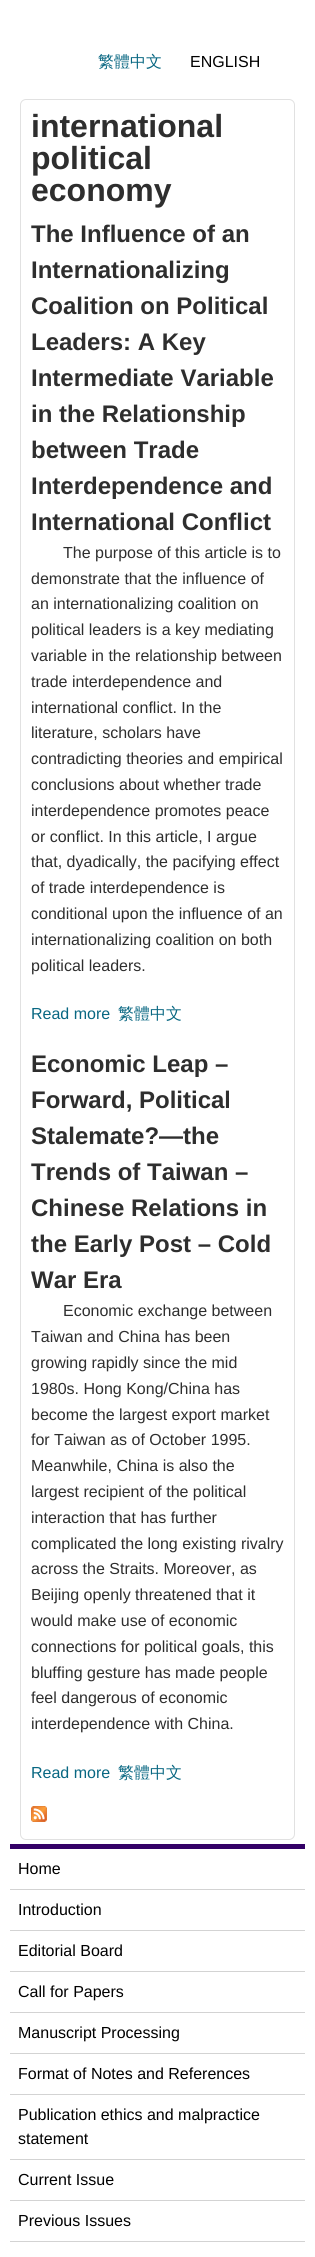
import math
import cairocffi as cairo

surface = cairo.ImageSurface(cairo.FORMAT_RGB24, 315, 2257)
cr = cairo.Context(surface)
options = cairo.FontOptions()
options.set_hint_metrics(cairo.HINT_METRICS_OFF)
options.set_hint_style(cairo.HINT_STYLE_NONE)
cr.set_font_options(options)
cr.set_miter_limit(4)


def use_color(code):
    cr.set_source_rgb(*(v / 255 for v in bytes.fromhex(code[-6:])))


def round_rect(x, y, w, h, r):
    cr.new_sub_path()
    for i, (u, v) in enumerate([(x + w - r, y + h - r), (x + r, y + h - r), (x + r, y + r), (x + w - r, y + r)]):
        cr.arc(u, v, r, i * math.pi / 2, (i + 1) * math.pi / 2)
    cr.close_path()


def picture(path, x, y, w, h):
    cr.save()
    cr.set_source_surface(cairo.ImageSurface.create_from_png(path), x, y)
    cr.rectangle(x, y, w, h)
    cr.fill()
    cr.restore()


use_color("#ffffff")
cr.paint()
cr.select_font_face("WenQuanYi Zen Hei Medium")
cr.set_font_size(16)
use_color("#086782")
cr.move_to(98, 67)
cr.show_text("繁體中文")
cr.select_font_face("Liberation Sans")
use_color("#000000")
cr.move_to(190, 67)
cr.show_text("ENGLISH")
round_rect(20.5, 99.5, 274, 1740, 5.5)
use_color("#e1e1e1")
cr.set_line_width(1)
cr.stroke()
cr.select_font_face("Liberation Sans", cairo.FONT_SLANT_NORMAL, cairo.FONT_WEIGHT_BOLD)
cr.set_font_size(32)
use_color("#2e2e2e")
cr.move_to(31, 137)
cr.show_text("international")
cr.move_to(31, 169)
cr.show_text("political")
cr.move_to(31, 201)
cr.show_text("economy")
cr.set_font_size(24)
cr.move_to(31, 242)
cr.show_text("The Influence of an")
cr.move_to(31, 278)
cr.show_text("Internationalizing")
cr.move_to(31, 314)
cr.show_text("Coalition on Political")
cr.move_to(31, 350)
cr.show_text("Leaders: A Key")
cr.move_to(31, 386)
cr.show_text("Intermediate Variable")
cr.move_to(31, 422)
cr.show_text("in the Relationship")
cr.move_to(31, 458)
cr.show_text("between Trade")
cr.move_to(31, 494)
cr.show_text("Interdependence and")
cr.move_to(31, 530)
cr.show_text("International Conflict")
cr.select_font_face("Liberation Sans")
cr.set_font_size(16)
cr.move_to(63, 558)
cr.show_text("The purpose of this article is to")
cr.move_to(31, 584)
cr.show_text("demonstrate that the influence of")
cr.move_to(31, 609)
cr.show_text("an internationalizing coalition on")
cr.move_to(31, 635)
cr.show_text("political leaders is a key mediating")
cr.move_to(31, 661)
cr.show_text("variable in the relationship between")
cr.move_to(31, 687)
cr.show_text("trade interdependence and")
cr.move_to(31, 713)
cr.show_text("international conflict. In the")
cr.move_to(31, 738)
cr.show_text("literature, scholars have")
cr.move_to(31, 764)
cr.show_text("contradicting theories and empirical")
cr.move_to(31, 790)
cr.show_text("conclusions about whether trade")
cr.move_to(31, 816)
cr.show_text("interdependence promotes peace")
cr.move_to(31, 842)
cr.show_text("or conflict. In this article, I argue")
cr.move_to(31, 867)
cr.show_text("that, dyadically, the pacifying effect")
cr.move_to(31, 893)
cr.show_text("of trade interdependence is")
cr.move_to(31, 919)
cr.show_text("conditional upon the influence of an")
cr.move_to(31, 945)
cr.show_text("internationalizing coalition on both")
cr.move_to(31, 971)
cr.show_text("political leaders.")
use_color("#086782")
cr.move_to(31, 1019)
cr.show_text("Read more")
cr.select_font_face("WenQuanYi Zen Hei Medium")
cr.move_to(118, 1019)
cr.show_text("繁體中文")
cr.select_font_face("Liberation Sans", cairo.FONT_SLANT_NORMAL, cairo.FONT_WEIGHT_BOLD)
cr.set_font_size(24)
use_color("#2e2e2e")
cr.move_to(31, 1072)
cr.show_text("Economic Leap –")
cr.move_to(31, 1108)
cr.show_text("Forward, Political")
cr.move_to(31, 1144)
cr.show_text("Stalemate?—the")
cr.move_to(31, 1180)
cr.show_text("Trends of Taiwan –")
cr.move_to(31, 1216)
cr.show_text("Chinese Relations in")
cr.move_to(31, 1252)
cr.show_text("the Early Post – Cold")
cr.move_to(31, 1288)
cr.show_text("War Era")
cr.select_font_face("Liberation Sans")
cr.set_font_size(16)
cr.move_to(63, 1316)
cr.show_text("Economic exchange between")
cr.move_to(31, 1342)
cr.show_text("Taiwan and China has been")
cr.move_to(31, 1368)
cr.show_text("growing rapidly since the mid")
cr.move_to(31, 1394)
cr.show_text("1980s. Hong Kong/China has")
cr.move_to(31, 1420)
cr.show_text("become the largest export market")
cr.move_to(31, 1445)
cr.show_text("for Taiwan as of October 1995.")
cr.move_to(31, 1471)
cr.show_text("Meanwhile, China is also the")
cr.move_to(31, 1497)
cr.show_text("largest recipient of the political")
cr.move_to(31, 1523)
cr.show_text("interaction that has further")
cr.move_to(31, 1549)
cr.show_text("complicated the long existing rivalry")
cr.move_to(31, 1574)
cr.show_text("across the Straits. Moreover, as")
cr.move_to(31, 1600)
cr.show_text("Beijing openly threatened that it")
cr.move_to(31, 1626)
cr.show_text("would make use of economic")
cr.move_to(31, 1652)
cr.show_text("connections for political goals, this")
cr.move_to(31, 1678)
cr.show_text("bluffing gesture has made people")
cr.move_to(31, 1703)
cr.show_text("feel dangerous of economic")
cr.move_to(31, 1729)
cr.show_text("interdependence with China.")
use_color("#086782")
cr.move_to(31, 1778)
cr.show_text("Read more")
cr.select_font_face("WenQuanYi Zen Hei Medium")
cr.move_to(118, 1778)
cr.show_text("繁體中文")
picture("img1.png", 31, 1806, 16, 16)
use_color("#330066")
cr.rectangle(10, 1844, 295, 5)
cr.fill()
use_color("#d3d3d3")
cr.rectangle(10, 1889, 295, 1)
cr.fill()
cr.select_font_face("Liberation Sans")
use_color("#000000")
cr.move_to(18, 1874)
cr.show_text("Home")
use_color("#d3d3d3")
cr.rectangle(10, 1930, 295, 1)
cr.fill()
use_color("#000000")
cr.move_to(18, 1915)
cr.show_text("Introduction")
use_color("#d3d3d3")
cr.rectangle(10, 1971, 295, 1)
cr.fill()
use_color("#000000")
cr.move_to(18, 1956)
cr.show_text("Editorial Board")
use_color("#d3d3d3")
cr.rectangle(10, 2012, 295, 1)
cr.fill()
use_color("#000000")
cr.move_to(18, 1997)
cr.show_text("Call for Papers")
use_color("#d3d3d3")
cr.rectangle(10, 2053, 295, 1)
cr.fill()
use_color("#000000")
cr.move_to(18, 2038)
cr.show_text("Manuscript Processing")
use_color("#d3d3d3")
cr.rectangle(10, 2094, 295, 1)
cr.fill()
use_color("#000000")
cr.move_to(18, 2079)
cr.show_text("Format of Notes and References")
use_color("#d3d3d3")
cr.rectangle(10, 2159, 295, 1)
cr.fill()
use_color("#000000")
cr.move_to(18, 2120)
cr.show_text("Publication ethics and malpractice")
cr.move_to(18, 2144)
cr.show_text("statement")
use_color("#d3d3d3")
cr.rectangle(10, 2200, 295, 1)
cr.fill()
use_color("#000000")
cr.move_to(18, 2185)
cr.show_text("Current Issue")
use_color("#d3d3d3")
cr.rectangle(10, 2241, 295, 1)
cr.fill()
use_color("#000000")
cr.move_to(18, 2226)
cr.show_text("Previous Issues")
surface.write_to_png("result.png")
